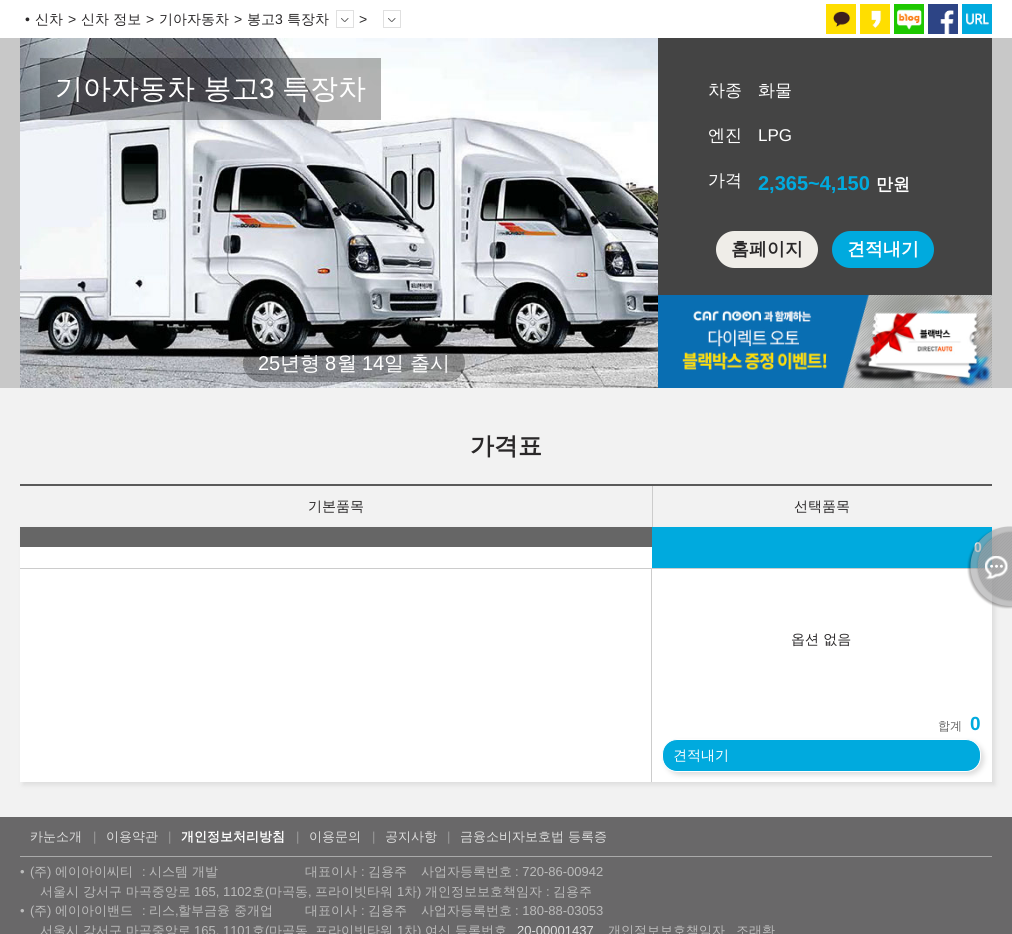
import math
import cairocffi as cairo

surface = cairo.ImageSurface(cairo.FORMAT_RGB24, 1012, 934)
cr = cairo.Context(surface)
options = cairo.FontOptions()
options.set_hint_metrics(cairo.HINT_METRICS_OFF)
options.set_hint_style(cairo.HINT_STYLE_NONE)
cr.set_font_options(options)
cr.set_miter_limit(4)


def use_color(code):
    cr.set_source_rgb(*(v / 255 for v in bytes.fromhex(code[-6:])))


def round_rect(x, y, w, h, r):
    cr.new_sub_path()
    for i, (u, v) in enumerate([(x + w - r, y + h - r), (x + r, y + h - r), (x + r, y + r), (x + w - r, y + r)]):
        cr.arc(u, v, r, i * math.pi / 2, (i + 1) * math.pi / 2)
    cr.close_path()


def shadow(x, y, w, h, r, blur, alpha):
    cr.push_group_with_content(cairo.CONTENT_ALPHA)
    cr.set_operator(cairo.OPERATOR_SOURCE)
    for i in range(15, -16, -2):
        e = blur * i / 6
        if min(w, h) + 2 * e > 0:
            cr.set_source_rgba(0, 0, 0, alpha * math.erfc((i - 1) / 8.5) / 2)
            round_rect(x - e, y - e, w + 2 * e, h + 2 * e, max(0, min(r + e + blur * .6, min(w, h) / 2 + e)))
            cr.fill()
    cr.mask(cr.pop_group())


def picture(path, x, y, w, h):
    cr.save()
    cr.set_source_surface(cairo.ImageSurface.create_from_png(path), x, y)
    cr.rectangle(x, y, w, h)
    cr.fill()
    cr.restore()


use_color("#ffffff")
cr.paint()
cr.select_font_face("Liberation Sans")
cr.set_font_size(14)
use_color("#2a2829")
cr.move_to(25, 24)
cr.show_text("•")
cr.select_font_face("WenQuanYi Zen Hei Medium")
cr.move_to(35, 24)
cr.show_text("신차")
cr.select_font_face("Liberation Sans")
cr.move_to(68, 24)
cr.show_text(">")
cr.select_font_face("WenQuanYi Zen Hei Medium")
cr.move_to(81, 24)
cr.show_text("신차 정보")
cr.select_font_face("Liberation Sans")
cr.move_to(146, 24)
cr.show_text(">")
cr.select_font_face("WenQuanYi Zen Hei Medium")
cr.move_to(159, 24)
cr.show_text("기아자동차")
cr.select_font_face("Liberation Sans")
cr.move_to(234, 24)
cr.show_text(">")
cr.select_font_face("WenQuanYi Zen Hei Medium")
cr.move_to(247, 24)
cr.show_text("봉고")
cr.select_font_face("Liberation Sans")
cr.move_to(275, 24)
cr.show_text("3")
cr.select_font_face("WenQuanYi Zen Hei Medium")
cr.move_to(287, 24)
cr.show_text("특장차")
picture("img1.png", 341, 18, 8, 4)
cr.rectangle(336.5, 10.5, 17, 17)
use_color("#e0e0e0")
cr.set_line_width(1)
cr.stroke()
cr.select_font_face("Liberation Sans")
use_color("#2a2829")
cr.move_to(359, 24)
cr.show_text(">")
picture("img1.png", 388, 18, 8, 4)
cr.rectangle(383.5, 10.5, 17, 17)
use_color("#e0e0e0")
cr.stroke()
picture("img2.png", 826, 4, 30, 30)
picture("img3.png", 860, 4, 30, 30)
picture("img4.png", 894, 4, 30, 30)
picture("img5.png", 928, 4, 30, 30)
picture("img6.png", 962, 4, 30, 30)
use_color("#c8c8c8")
cr.rectangle(0, 38, 1012, 350)
cr.fill()
picture("img7.png", 20, 38, 638, 350)
cr.set_source_rgba(0, 0, 0, 0.3)
cr.rectangle(40, 58, 341, 62)
cr.fill()
cr.select_font_face("WenQuanYi Zen Hei Medium")
cr.set_font_size(28)
use_color("#ffffff")
cr.move_to(55, 98)
cr.show_text("기아자동차 봉고")
cr.select_font_face("Liberation Sans")
cr.move_to(259, 98)
cr.show_text("3")
cr.select_font_face("WenQuanYi Zen Hei Medium")
cr.move_to(282, 98)
cr.show_text("특장차")
use_color("#444444")
cr.rectangle(658, 38, 334, 257)
cr.fill()
cr.set_font_size(17)
use_color("#ffffff")
cr.move_to(708, 96)
cr.show_text("차종")
cr.move_to(758, 96)
cr.show_text("화물")
cr.move_to(708, 141)
cr.show_text("엔진")
cr.select_font_face("Liberation Sans")
cr.move_to(758, 141)
cr.show_text("LPG")
cr.select_font_face("WenQuanYi Zen Hei Medium")
cr.move_to(708, 186)
cr.show_text("가격")
cr.select_font_face("Liberation Sans", cairo.FONT_SLANT_NORMAL, cairo.FONT_WEIGHT_BOLD)
cr.set_font_size(20)
use_color("#00aade")
cr.move_to(758, 190)
cr.show_text("2,365~4,150")
cr.select_font_face("WenQuanYi Zen Hei", cairo.FONT_SLANT_NORMAL, cairo.FONT_WEIGHT_BOLD)
cr.set_font_size(17)
use_color("#ffffff")
cr.move_to(876, 190)
cr.show_text("만원")
use_color("#efede8")
round_rect(716, 231, 102, 37, 18.5)
cr.fill()
cr.set_font_size(18)
use_color("#2a2829")
cr.move_to(731, 255)
cr.show_text("홈페이지")
use_color("#00aade")
round_rect(832, 231, 102, 37, 18.5)
cr.fill()
use_color("#ffffff")
cr.move_to(847, 255)
cr.show_text("견적내기")
cr.set_source_rgba(0, 0, 0, 0.3)
round_rect(243, 344, 222, 38, 19)
cr.fill()
cr.select_font_face("Liberation Sans")
cr.set_font_size(20)
use_color("#ffffff")
cr.move_to(258, 370)
cr.show_text("25")
cr.select_font_face("WenQuanYi Zen Hei Medium")
cr.move_to(280, 370)
cr.show_text("년형")
cr.select_font_face("Liberation Sans")
cr.move_to(325, 370)
cr.show_text("8")
cr.select_font_face("WenQuanYi Zen Hei Medium")
cr.move_to(337, 370)
cr.show_text("월")
cr.select_font_face("Liberation Sans")
cr.move_to(362, 370)
cr.show_text("14")
cr.select_font_face("WenQuanYi Zen Hei Medium")
cr.move_to(384, 370)
cr.show_text("일 출시")
picture("img8.png", 658, 295, 334, 93)
use_color("#f2f2f2")
cr.rectangle(0, 388, 1012, 429)
cr.fill()
cr.select_font_face("WenQuanYi Zen Hei", cairo.FONT_SLANT_NORMAL, cairo.FONT_WEIGHT_BOLD)
cr.set_font_size(24)
use_color("#2a2829")
cr.move_to(470, 454)
cr.show_text("가격표")
use_color("#5a5a5a")
cr.rectangle(20, 484, 972, 2)
cr.fill()
cr.select_font_face("WenQuanYi Zen Hei Medium")
cr.set_font_size(14)
use_color("#2a2829")
cr.move_to(308, 511)
cr.show_text("기본품목")
use_color("#dddddd")
shadow(23, 530, 972, 255, 0, 2.5, 1)
use_color("#cccccc")
cr.rectangle(652, 486, 1, 41)
cr.fill()
use_color("#2a2829")
cr.move_to(794, 511)
cr.show_text("선택품목")
use_color("#ffffff")
cr.rectangle(20, 547, 972, 235)
cr.fill()
use_color("#666666")
cr.rectangle(20, 527, 632, 20)
cr.fill()
use_color("#00aade")
cr.rectangle(652, 527, 340, 41)
cr.fill()
cr.select_font_face("Liberation Sans", cairo.FONT_SLANT_NORMAL, cairo.FONT_WEIGHT_BOLD)
use_color("#ffffff")
cr.move_to(974, 552)
cr.show_text("0")
use_color("#cccccc")
cr.rectangle(20, 568, 971, 1)
cr.fill()
cr.rectangle(651, 568, 1, 214)
cr.fill()
cr.select_font_face("WenQuanYi Zen Hei Medium")
use_color("#2a2829")
cr.move_to(791, 644)
cr.show_text("옵션 없음")
cr.set_font_size(12)
use_color("#666666")
cr.move_to(938, 730)
cr.show_text("합계")
cr.select_font_face("Liberation Sans", cairo.FONT_SLANT_NORMAL, cairo.FONT_WEIGHT_BOLD)
cr.set_font_size(19)
use_color("#00aade")
cr.move_to(970, 730)
cr.show_text("0")
use_color("#dddddd")
shadow(665, 742, 319, 33, 15, 2.5, 1)
use_color("#00aade")
round_rect(662.5, 739.5, 318, 32, 14.5)
cr.fill_preserve()
use_color("#ffffff")
cr.stroke()
cr.select_font_face("WenQuanYi Zen Hei Medium")
cr.set_font_size(14)
cr.move_to(673, 760)
cr.show_text("견적내기")
use_color("#696869")
cr.rectangle(0, 817, 1012, 117)
cr.fill()
use_color("#aaaaaa")
cr.rectangle(20, 856, 972, 1)
cr.fill()
cr.set_font_size(13)
use_color("#dddddd")
cr.move_to(30, 841)
cr.show_text("카눈소개")
cr.select_font_face("Liberation Sans")
use_color("#999999")
cr.move_to(93, 841)
cr.show_text("|")
cr.select_font_face("WenQuanYi Zen Hei Medium")
use_color("#dddddd")
cr.move_to(106, 841)
cr.show_text("이용약관")
cr.select_font_face("Liberation Sans")
use_color("#999999")
cr.move_to(168, 841)
cr.show_text("|")
cr.select_font_face("WenQuanYi Zen Hei", cairo.FONT_SLANT_NORMAL, cairo.FONT_WEIGHT_BOLD)
use_color("#ffffff")
cr.move_to(181, 841)
cr.show_text("개인정보처리방침")
cr.select_font_face("Liberation Sans")
use_color("#999999")
cr.move_to(296, 841)
cr.show_text("|")
cr.select_font_face("WenQuanYi Zen Hei Medium")
use_color("#dddddd")
cr.move_to(309, 841)
cr.show_text("이용문의")
cr.select_font_face("Liberation Sans")
use_color("#999999")
cr.move_to(372, 841)
cr.show_text("|")
cr.select_font_face("WenQuanYi Zen Hei Medium")
use_color("#dddddd")
cr.move_to(385, 841)
cr.show_text("공지사항")
cr.select_font_face("Liberation Sans")
use_color("#999999")
cr.move_to(447, 841)
cr.show_text("|")
cr.select_font_face("WenQuanYi Zen Hei Medium")
use_color("#dddddd")
cr.move_to(460, 841)
cr.show_text("금융소비자보호법 등록증")
cr.select_font_face("Liberation Sans")
use_color("#bbbbbb")
cr.move_to(20, 876)
cr.show_text("•")
cr.move_to(30, 876)
cr.show_text("(")
cr.select_font_face("WenQuanYi Zen Hei Medium")
cr.move_to(34, 876)
cr.show_text("주")
cr.select_font_face("Liberation Sans")
cr.move_to(47, 876)
cr.show_text(")")
cr.select_font_face("WenQuanYi Zen Hei Medium")
cr.move_to(55, 876)
cr.show_text("에이아이씨티")
cr.select_font_face("Liberation Sans")
cr.move_to(142, 876)
cr.show_text(":")
cr.select_font_face("WenQuanYi Zen Hei Medium")
cr.move_to(149, 876)
cr.show_text("시스템 개발")
cr.move_to(305, 876)
cr.show_text("대표이사")
cr.select_font_face("Liberation Sans")
cr.move_to(361, 876)
cr.show_text(":")
cr.select_font_face("WenQuanYi Zen Hei Medium")
cr.move_to(368, 876)
cr.show_text("김용주")
cr.move_to(421, 876)
cr.show_text("사업자등록번호")
cr.select_font_face("Liberation Sans")
cr.move_to(515, 876)
cr.show_text(": 720-86-00942")
cr.select_font_face("WenQuanYi Zen Hei Medium")
cr.move_to(40, 896)
cr.show_text("서울시 강서구 마곡중앙로")
cr.select_font_face("Liberation Sans")
cr.move_to(194, 896)
cr.show_text("165, 1102")
cr.select_font_face("WenQuanYi Zen Hei Medium")
cr.move_to(252, 896)
cr.show_text("호")
cr.select_font_face("Liberation Sans")
cr.move_to(265, 896)
cr.show_text("(")
cr.select_font_face("WenQuanYi Zen Hei Medium")
cr.move_to(269, 896)
cr.show_text("마곡동")
cr.select_font_face("Liberation Sans")
cr.move_to(308, 896)
cr.show_text(",")
cr.select_font_face("WenQuanYi Zen Hei Medium")
cr.move_to(315, 896)
cr.show_text("프라이빗타워")
cr.select_font_face("Liberation Sans")
cr.move_to(397, 896)
cr.show_text("1")
cr.select_font_face("WenQuanYi Zen Hei Medium")
cr.move_to(404, 896)
cr.show_text("차")
cr.select_font_face("Liberation Sans")
cr.move_to(417, 896)
cr.show_text(")")
cr.select_font_face("WenQuanYi Zen Hei Medium")
cr.move_to(425, 896)
cr.show_text("개인정보보호책임자")
cr.select_font_face("Liberation Sans")
cr.move_to(546, 896)
cr.show_text(":")
cr.select_font_face("WenQuanYi Zen Hei Medium")
cr.move_to(553, 896)
cr.show_text("김용주")
cr.select_font_face("Liberation Sans")
cr.move_to(20, 915)
cr.show_text("•")
cr.move_to(30, 915)
cr.show_text("(")
cr.select_font_face("WenQuanYi Zen Hei Medium")
cr.move_to(34, 915)
cr.show_text("주")
cr.select_font_face("Liberation Sans")
cr.move_to(47, 915)
cr.show_text(")")
cr.select_font_face("WenQuanYi Zen Hei Medium")
cr.move_to(55, 915)
cr.show_text("에이아이밴드")
cr.select_font_face("Liberation Sans")
cr.move_to(142, 915)
cr.show_text(":")
cr.select_font_face("WenQuanYi Zen Hei Medium")
cr.move_to(149, 915)
cr.show_text("리스")
cr.select_font_face("Liberation Sans")
cr.move_to(175, 915)
cr.show_text(",")
cr.select_font_face("WenQuanYi Zen Hei Medium")
cr.move_to(178, 915)
cr.show_text("할부금융 중개업")
cr.move_to(305, 915)
cr.show_text("대표이사")
cr.select_font_face("Liberation Sans")
cr.move_to(361, 915)
cr.show_text(":")
cr.select_font_face("WenQuanYi Zen Hei Medium")
cr.move_to(368, 915)
cr.show_text("김용주")
cr.move_to(421, 915)
cr.show_text("사업자등록번호")
cr.select_font_face("Liberation Sans")
cr.move_to(515, 915)
cr.show_text(": 180-88-03053")
cr.select_font_face("WenQuanYi Zen Hei Medium")
cr.move_to(40, 935)
cr.show_text("서울시 강서구 마곡중앙로")
cr.select_font_face("Liberation Sans")
cr.move_to(194, 935)
cr.show_text("165, 1101")
cr.select_font_face("WenQuanYi Zen Hei Medium")
cr.move_to(252, 935)
cr.show_text("호")
cr.select_font_face("Liberation Sans")
cr.move_to(265, 935)
cr.show_text("(")
cr.select_font_face("WenQuanYi Zen Hei Medium")
cr.move_to(269, 935)
cr.show_text("마곡동")
cr.move_to(315, 935)
cr.show_text("프라이빗타워")
cr.select_font_face("Liberation Sans")
cr.move_to(397, 935)
cr.show_text("1")
cr.select_font_face("WenQuanYi Zen Hei Medium")
cr.move_to(404, 935)
cr.show_text("차")
cr.select_font_face("Liberation Sans")
cr.move_to(417, 935)
cr.show_text(")")
cr.select_font_face("WenQuanYi Zen Hei Medium")
cr.move_to(425, 935)
cr.show_text("여신 등록번호")
cr.select_font_face("Liberation Sans")
use_color("#dddddd")
cr.move_to(517, 935)
cr.show_text("20-00001437")
cr.select_font_face("WenQuanYi Zen Hei Medium")
use_color("#bbbbbb")
cr.move_to(608, 935)
cr.show_text("개인정보보호책임자")
cr.move_to(736, 935)
cr.show_text("조래환")
picture("img9.png", 967, 526, 45, 83)
surface.write_to_png("result.png")
